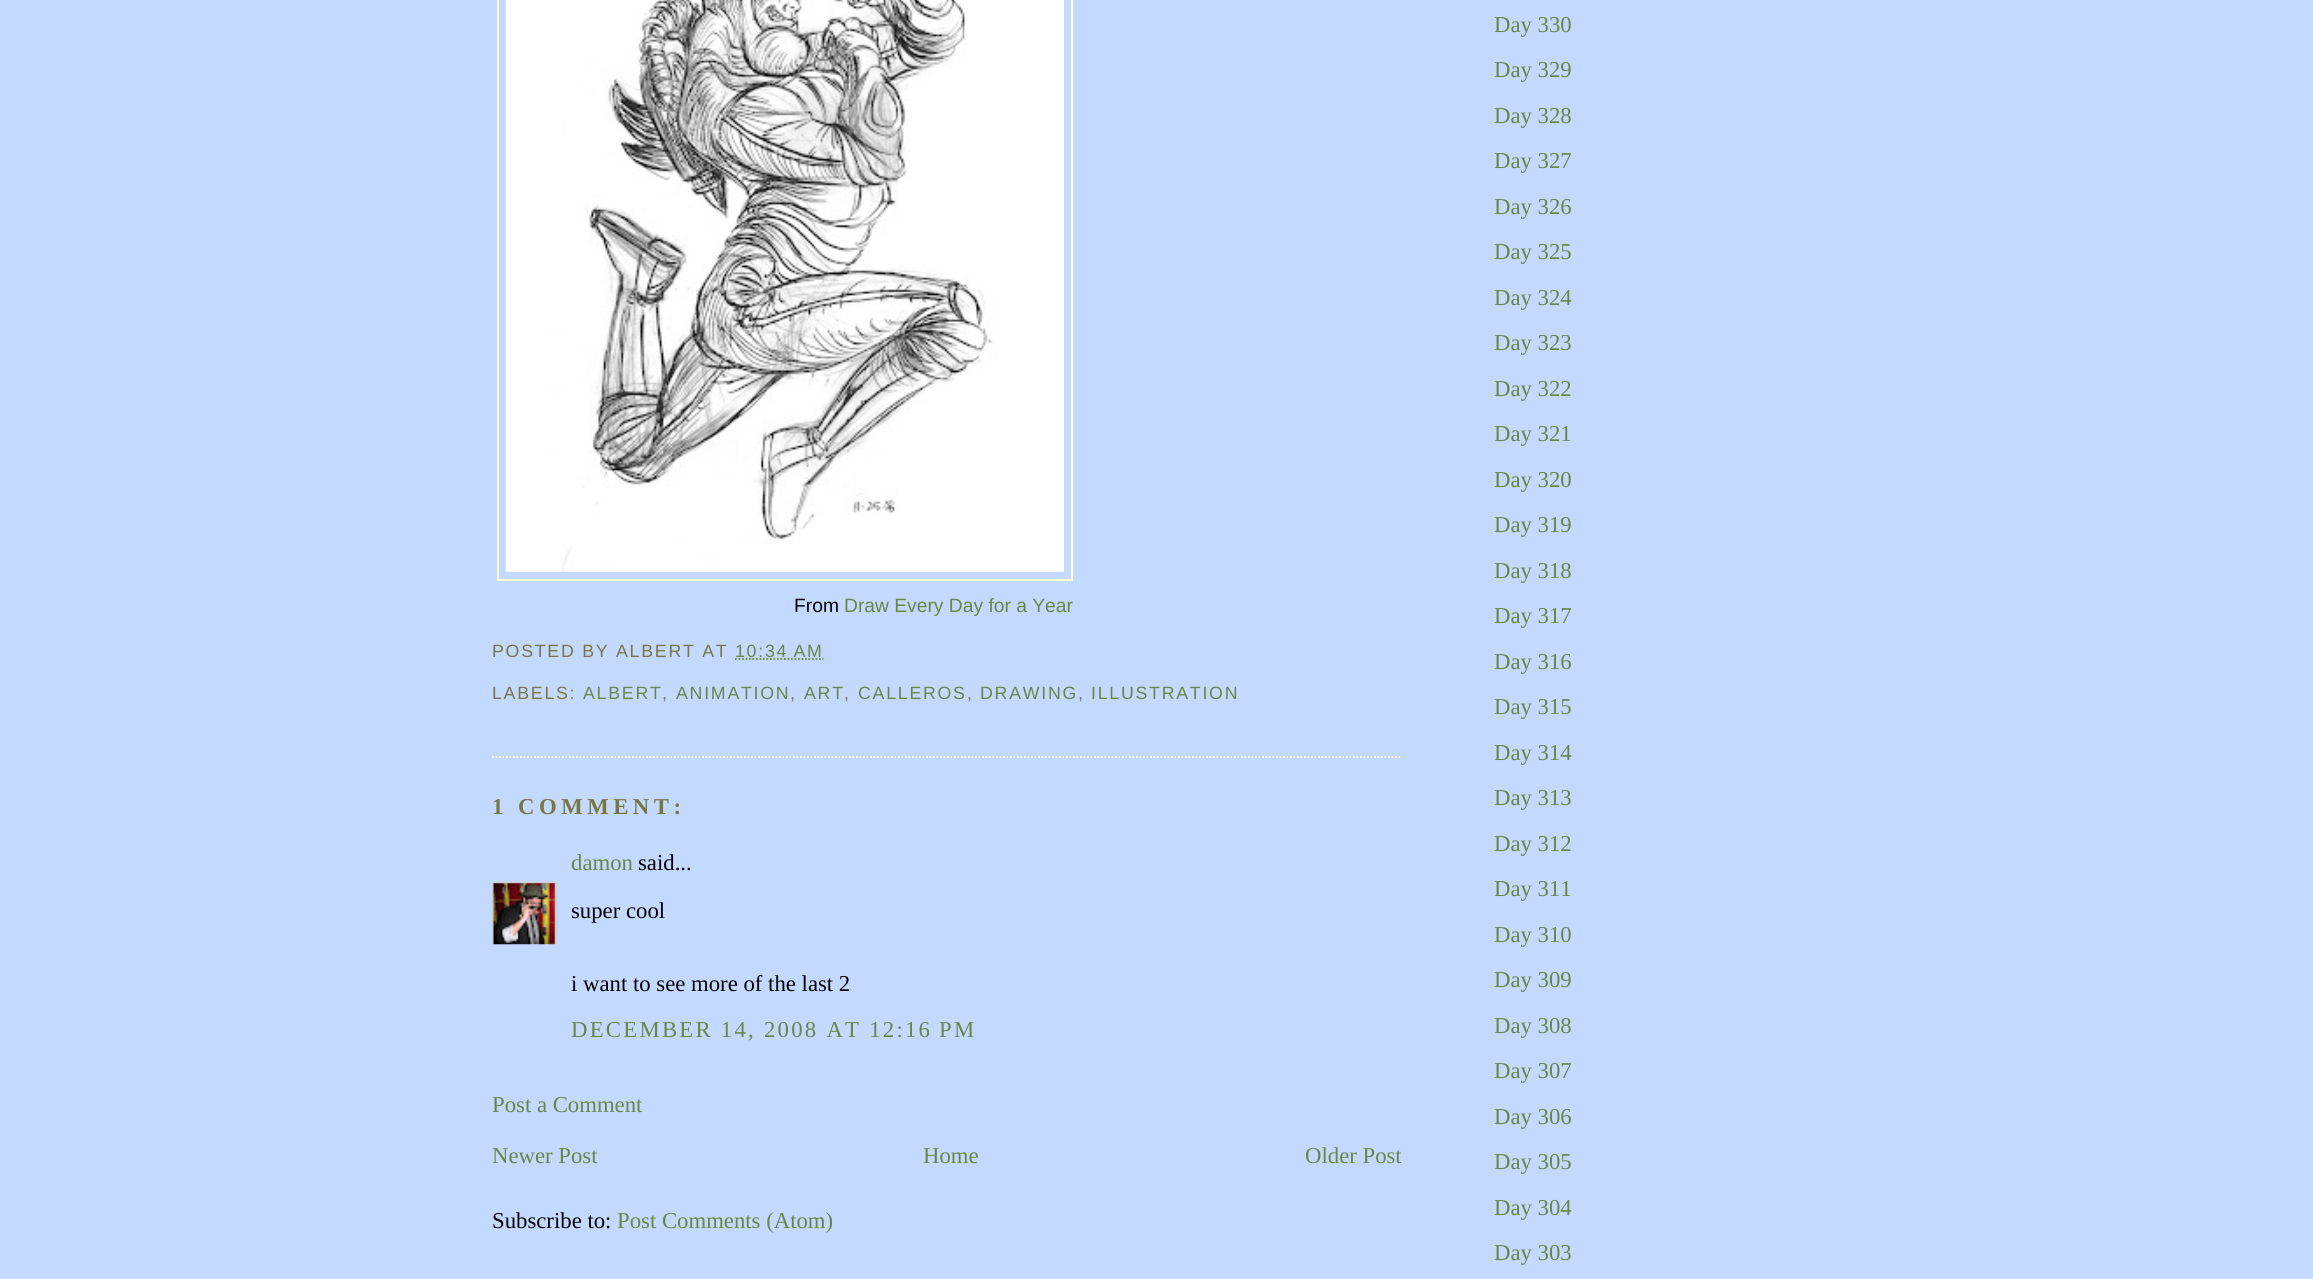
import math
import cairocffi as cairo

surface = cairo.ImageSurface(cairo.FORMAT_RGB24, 2313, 1279)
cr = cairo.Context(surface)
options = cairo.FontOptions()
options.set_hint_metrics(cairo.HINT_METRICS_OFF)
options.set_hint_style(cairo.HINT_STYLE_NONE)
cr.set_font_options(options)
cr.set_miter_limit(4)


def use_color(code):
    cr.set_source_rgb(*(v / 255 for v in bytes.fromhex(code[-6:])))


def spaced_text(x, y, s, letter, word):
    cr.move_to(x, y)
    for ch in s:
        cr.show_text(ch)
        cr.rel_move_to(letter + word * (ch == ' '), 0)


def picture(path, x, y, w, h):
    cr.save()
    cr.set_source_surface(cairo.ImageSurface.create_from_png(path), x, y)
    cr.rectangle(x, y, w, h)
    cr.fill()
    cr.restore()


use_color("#c3d9ff")
cr.paint()
cr.new_path()
cr.move_to(492, 757)
cr.line_to(1402, 757)
use_color("#ffffcc")
cr.set_line_width(1.8)
cr.set_dash([1.75, 1.75])
cr.stroke()
cr.rectangle(498, -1, 574, 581)
cr.set_line_width(2)
cr.set_dash([])
cr.stroke()
picture("img1.png", 505, 0, 559, 572)
cr.select_font_face("Liberation Sans")
cr.set_font_size(19.25)
use_color("#000000")
cr.move_to(794, 612)
cr.show_text("From")
use_color("#668844")
cr.move_to(844, 612)
cr.show_text("Draw Every Day for a Year")
cr.set_font_size(17.75)
use_color("#777744")
spaced_text(492, 657, "POSTED BY ALBERT AT", 1.75, 0)
use_color("#668844")
spaced_text(735, 657, "10:34 AM", 1.75, 0)
cr.new_path()
cr.move_to(735, 659)
cr.line_to(823.5, 659)
cr.set_line_width(1.8)
cr.set_dash([1.75, 1.75])
cr.stroke()
use_color("#777744")
spaced_text(492, 699, "LABELS:", 1.75, 0)
use_color("#668844")
spaced_text(583, 699, "ALBERT", 1.75, 0)
use_color("#777744")
spaced_text(662, 699, ",", 1.75, 0)
use_color("#668844")
spaced_text(676, 699, "ANIMATION", 1.75, 0)
use_color("#777744")
spaced_text(790, 699, ",", 1.75, 0)
use_color("#668844")
spaced_text(804, 699, "ART", 1.75, 0)
use_color("#777744")
spaced_text(844, 699, ",", 1.75, 0)
use_color("#668844")
spaced_text(858, 699, "CALLEROS", 1.75, 0)
use_color("#777744")
spaced_text(967, 699, ",", 1.75, 0)
use_color("#668844")
spaced_text(980, 699, "DRAWING", 1.75, 0)
use_color("#777744")
spaced_text(1078, 699, ",", 1.75, 0)
use_color("#668844")
spaced_text(1091, 699, "ILLUSTRATION", 1.75, 0)
cr.select_font_face("Liberation Serif", cairo.FONT_SLANT_NORMAL, cairo.FONT_WEIGHT_BOLD)
cr.set_font_size(22.75)
use_color("#777744")
spaced_text(492, 814, "1 COMMENT:", 4.5, 0)
cr.select_font_face("Liberation Serif")
use_color("#668844")
cr.move_to(571, 870)
cr.show_text("damon")
use_color("#000000")
cr.move_to(638, 870)
cr.show_text("said...")
cr.save()
cr.rectangle(492, 882, 65, 63)
cr.clip()
cr.rectangle(493, 883, 63, 63)
use_color("#cccccc")
cr.set_line_width(2)
cr.set_dash([])
cr.stroke()
cr.restore()
picture("img2.png", 493, 883, 62, 62)
cr.move_to(571, 918)
cr.show_text("super cool")
cr.move_to(571, 991)
cr.show_text("i want to see more of the last 2")
use_color("#668844")
spaced_text(571, 1037, "DECEMBER 14, 2008 AT 12:16 PM", 2.25, 0)
cr.move_to(492, 1112)
cr.show_text("Post a Comment")
cr.move_to(492, 1163)
cr.show_text("Newer Post")
cr.move_to(923, 1163)
cr.show_text("Home")
cr.move_to(1305, 1163)
cr.show_text("Older Post")
use_color("#000000")
cr.move_to(492, 1228)
cr.show_text("Subscribe to:")
use_color("#668844")
cr.move_to(617, 1228)
cr.show_text("Post Comments (Atom)")
cr.move_to(1494, 32)
cr.show_text("Day 330")
cr.move_to(1494, 77)
cr.show_text("Day 329")
cr.move_to(1494, 123)
cr.show_text("Day 328")
cr.move_to(1494, 168)
cr.show_text("Day 327")
cr.move_to(1494, 214)
cr.show_text("Day 326")
cr.move_to(1494, 259)
cr.show_text("Day 325")
cr.move_to(1494, 305)
cr.show_text("Day 324")
cr.move_to(1494, 350)
cr.show_text("Day 323")
cr.move_to(1494, 396)
cr.show_text("Day 322")
cr.move_to(1494, 441)
cr.show_text("Day 321")
cr.move_to(1494, 487)
cr.show_text("Day 320")
cr.move_to(1494, 532)
cr.show_text("Day 319")
cr.move_to(1494, 578)
cr.show_text("Day 318")
cr.move_to(1494, 623)
cr.show_text("Day 317")
cr.move_to(1494, 669)
cr.show_text("Day 316")
cr.move_to(1494, 714)
cr.show_text("Day 315")
cr.move_to(1494, 760)
cr.show_text("Day 314")
cr.move_to(1494, 805)
cr.show_text("Day 313")
cr.move_to(1494, 851)
cr.show_text("Day 312")
cr.move_to(1494, 896)
cr.show_text("Day 311")
cr.move_to(1494, 942)
cr.show_text("Day 310")
cr.move_to(1494, 987)
cr.show_text("Day 309")
cr.move_to(1494, 1033)
cr.show_text("Day 308")
cr.move_to(1494, 1078)
cr.show_text("Day 307")
cr.move_to(1494, 1124)
cr.show_text("Day 306")
cr.move_to(1494, 1169)
cr.show_text("Day 305")
cr.move_to(1494, 1215)
cr.show_text("Day 304")
cr.move_to(1494, 1260)
cr.show_text("Day 303")
surface.write_to_png("result.png")
